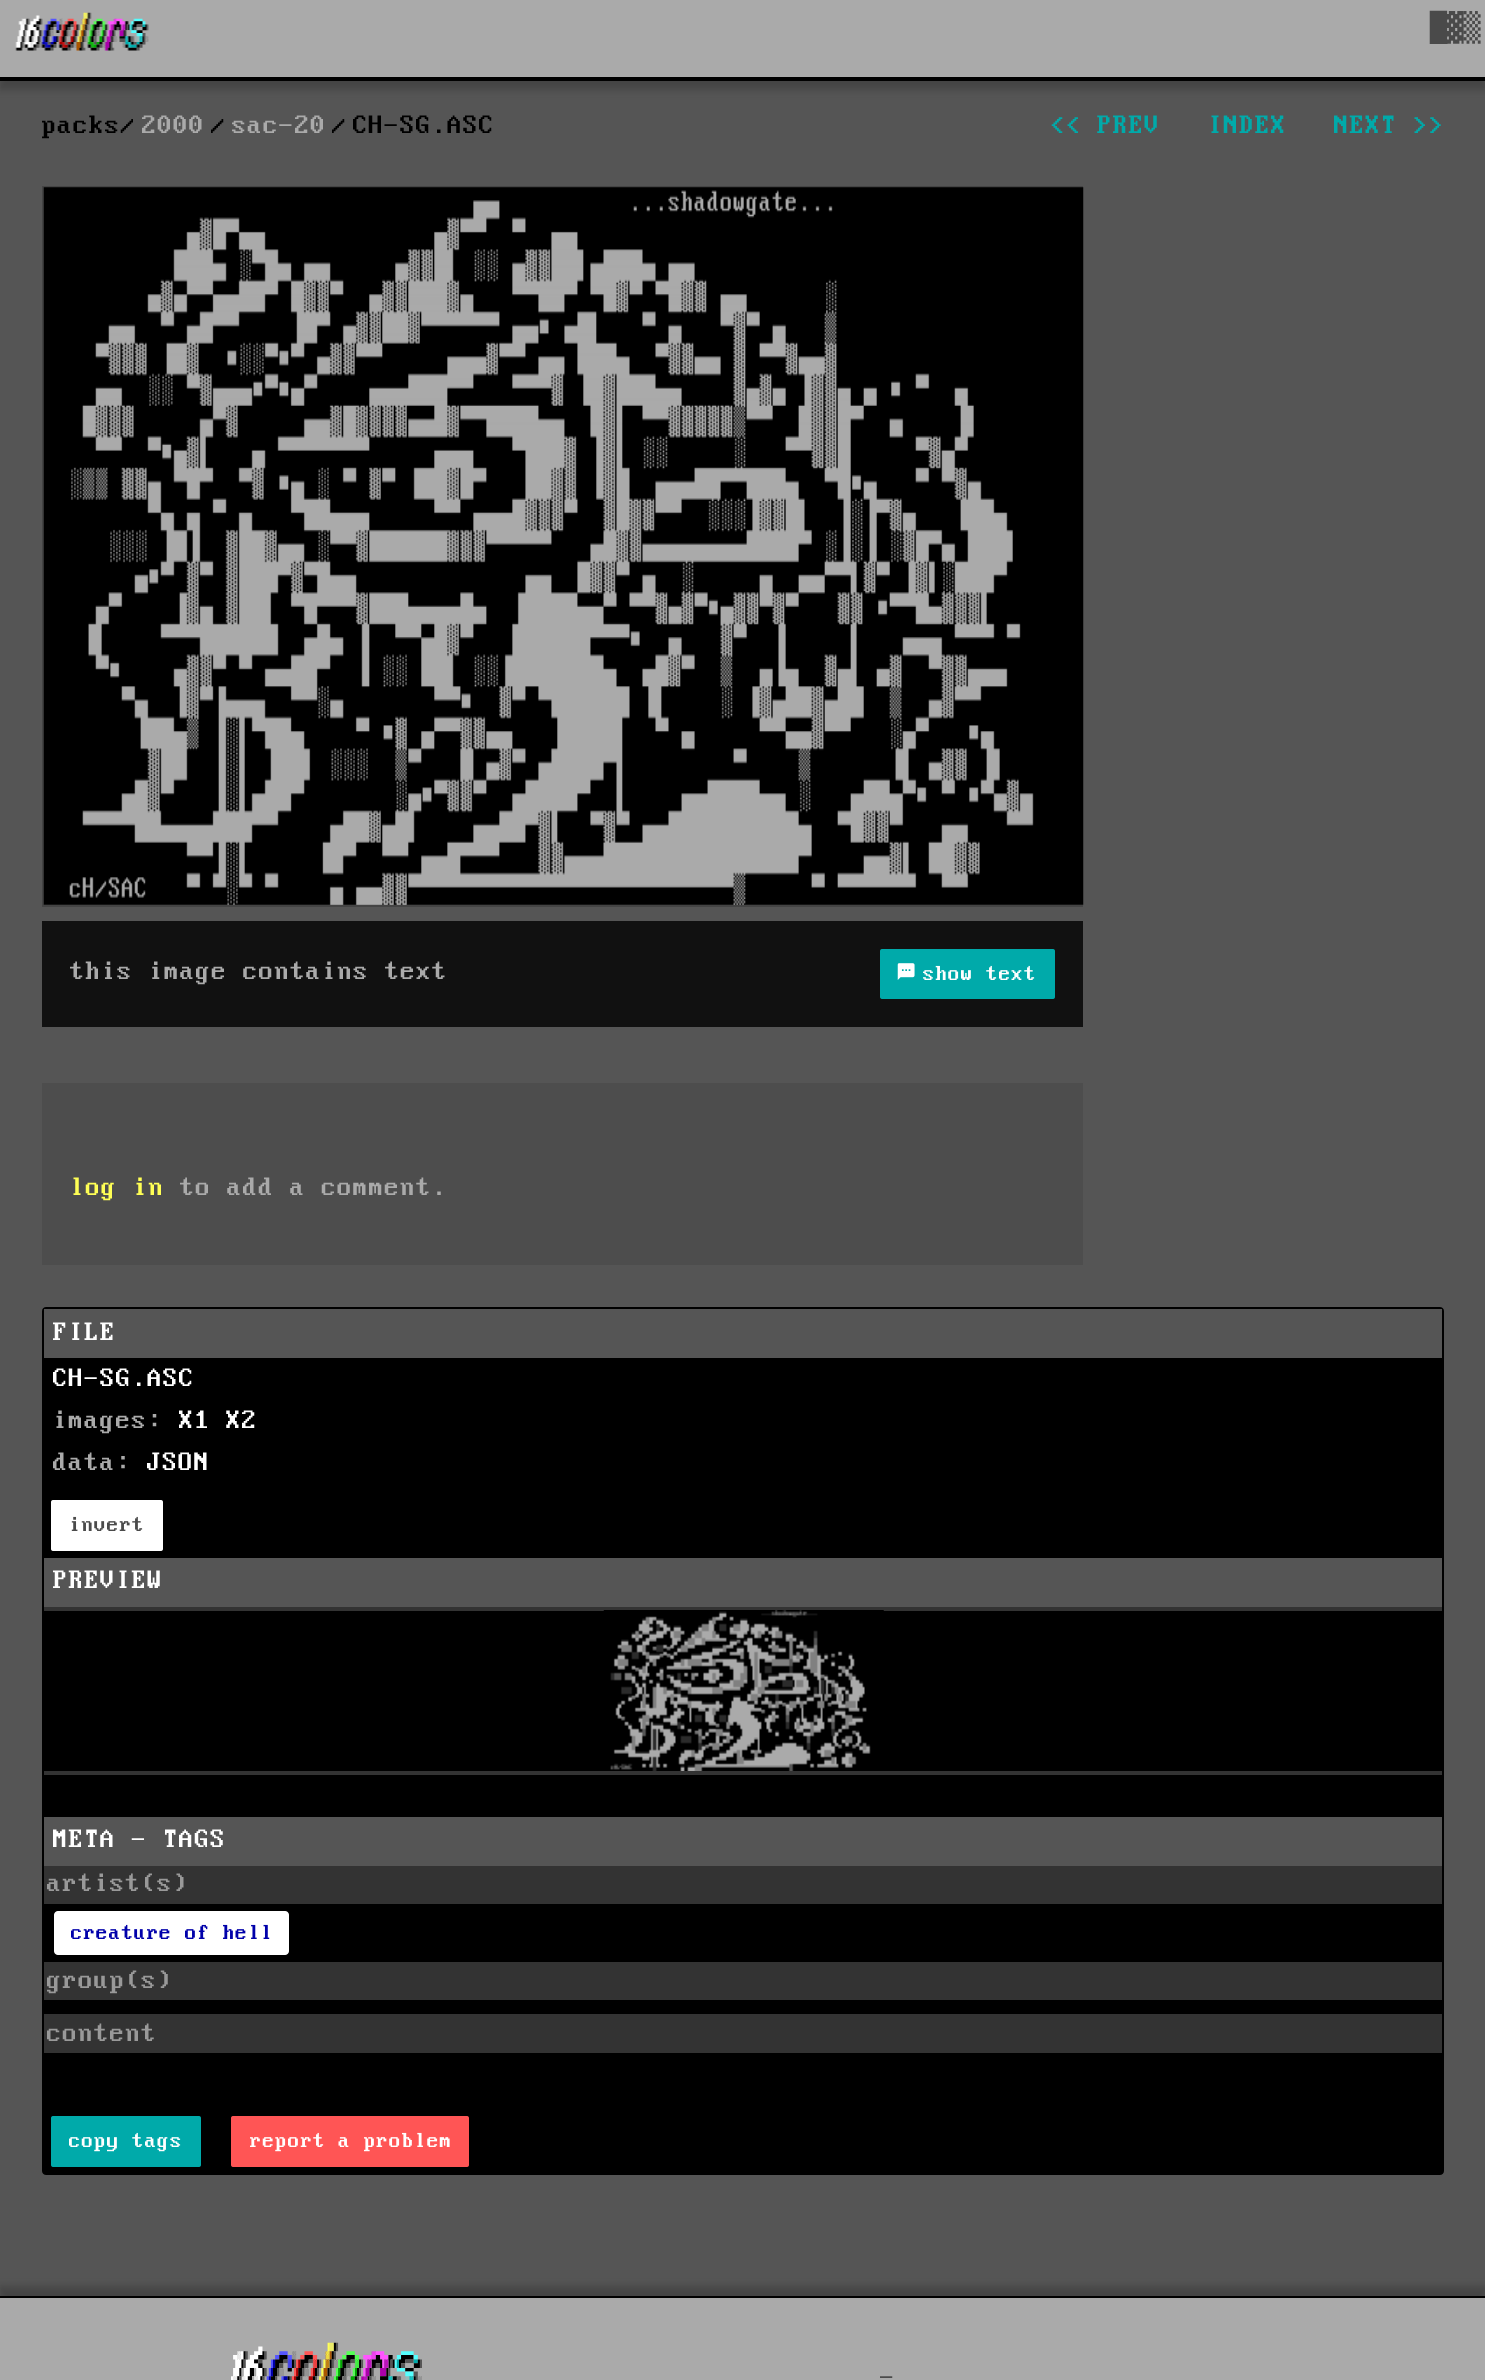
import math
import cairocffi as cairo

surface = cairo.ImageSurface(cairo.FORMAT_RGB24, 1485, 2380)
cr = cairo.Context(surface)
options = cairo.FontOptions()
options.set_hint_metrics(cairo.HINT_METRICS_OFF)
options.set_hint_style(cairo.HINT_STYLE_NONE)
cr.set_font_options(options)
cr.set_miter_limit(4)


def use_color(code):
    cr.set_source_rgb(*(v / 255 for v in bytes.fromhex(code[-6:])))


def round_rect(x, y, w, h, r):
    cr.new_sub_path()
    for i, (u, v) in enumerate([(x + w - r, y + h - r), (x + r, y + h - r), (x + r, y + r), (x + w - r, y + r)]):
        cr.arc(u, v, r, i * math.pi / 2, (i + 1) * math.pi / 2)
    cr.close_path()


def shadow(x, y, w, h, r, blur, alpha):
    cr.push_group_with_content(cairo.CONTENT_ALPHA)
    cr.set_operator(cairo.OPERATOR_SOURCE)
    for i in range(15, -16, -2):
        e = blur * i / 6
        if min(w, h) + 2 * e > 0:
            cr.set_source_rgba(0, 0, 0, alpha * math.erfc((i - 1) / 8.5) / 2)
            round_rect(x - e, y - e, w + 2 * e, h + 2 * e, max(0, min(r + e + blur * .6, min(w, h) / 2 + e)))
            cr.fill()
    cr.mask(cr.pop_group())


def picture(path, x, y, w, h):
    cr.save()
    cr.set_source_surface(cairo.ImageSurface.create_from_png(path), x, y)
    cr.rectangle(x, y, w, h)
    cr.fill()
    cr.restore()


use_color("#555555")
cr.paint()
use_color("#222222")
shadow(0, 9, 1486, 80, 0, 4.5, 0.35)
use_color("#aaaaaa")
cr.rectangle(0, 0, 1485, 77)
cr.fill()
use_color("#000000")
cr.rectangle(0, 77, 1485, 4)
cr.fill()
picture("img1.png", 15, 12, 134, 39)
cr.select_font_face("DejaVu Sans Mono")
cr.set_font_size(28)
use_color("#4a4a4a")
cr.move_to(1430, 37)
cr.show_text("█▓▒")
cr.select_font_face("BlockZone")
use_color("#000000")
cr.move_to(42, 133)
cr.show_text("packs/")
use_color("#aaaaaa")
cr.move_to(142, 133)
cr.show_text("2000")
use_color("#000000")
cr.move_to(211, 133)
cr.show_text("/")
use_color("#aaaaaa")
cr.move_to(232, 133)
cr.show_text("sac-20")
use_color("#000000")
cr.move_to(332, 133)
cr.show_text("/")
cr.move_to(353, 133)
cr.show_text("CH-SG.ASC")
use_color("#00aaaa")
cr.move_to(1050, 133)
cr.show_text("<< PREV")
cr.move_to(1208, 133)
cr.show_text("INDEX")
cr.move_to(1334, 133)
cr.show_text("NEXT >>")
cr.save()
cr.rectangle(42, 186, 1041, 721)
cr.clip()
cr.rectangle(43, 187, 1043, 719)
use_color("#444444")
cr.stroke()
cr.restore()
picture("img2.png", 43, 187, 1041, 718)
use_color("#111111")
cr.rectangle(42, 921, 1041, 106)
cr.fill()
use_color("#aaaaaa")
cr.move_to(70, 979)
cr.show_text("this image contains text")
use_color("#00aaaa")
round_rect(880, 949, 175, 50, 2)
cr.fill()
picture("img3.png", 897, 963, 18, 17)
cr.set_font_size(22.5)
use_color("#ffffff")
cr.move_to(923, 980)
cr.show_text("show text")
use_color("#4d4d4d")
cr.rectangle(42, 1083, 1041, 182)
cr.fill()
cr.set_font_size(28)
use_color("#ffff55")
cr.move_to(70, 1195)
cr.show_text("log in")
use_color("#aaaaaa")
cr.move_to(180, 1195)
cr.show_text("to add a comment.")
use_color("#000000")
round_rect(43, 1308, 1400, 866, 3)
cr.fill_preserve()
cr.stroke()
use_color("#555555")
cr.rectangle(44, 1309, 1398, 49)
cr.fill()
use_color("#ffffff")
cr.move_to(53, 1340)
cr.show_text("FILE")
cr.move_to(53, 1386)
cr.show_text("CH-SG.ASC")
use_color("#aaaaaa")
cr.move_to(53, 1428)
cr.show_text("images:")
use_color("#ffffff")
cr.move_to(179, 1428)
cr.show_text("X1 X2")
use_color("#aaaaaa")
cr.move_to(53, 1470)
cr.show_text("data:")
use_color("#ffffff")
cr.move_to(147, 1470)
cr.show_text("JSON")
round_rect(51, 1500, 112, 51, 2)
cr.fill()
cr.set_font_size(22.5)
use_color("#4a4a4a")
cr.move_to(69, 1531)
cr.show_text("invert")
use_color("#555555")
cr.rectangle(44, 1558, 1398, 49)
cr.fill()
cr.set_font_size(28)
use_color("#ffffff")
cr.move_to(53, 1588)
cr.show_text("PREVIEW")
use_color("#333333")
cr.rectangle(44, 1607, 1398, 4)
cr.fill()
cr.rectangle(44, 1771, 1398, 4)
cr.fill()
picture("img4.png", 603, 1610, 281, 161)
use_color("#555555")
cr.rectangle(44, 1817, 1398, 49)
cr.fill()
use_color("#ffffff")
cr.move_to(53, 1847)
cr.show_text("META - TAGS")
use_color("#333333")
cr.rectangle(44, 1866, 1398, 38)
cr.fill()
use_color("#999999")
cr.move_to(47, 1891)
cr.show_text("artist(s)")
use_color("#ffffff")
round_rect(54, 1911, 235, 44, 4)
cr.fill()
cr.set_font_size(22.5)
use_color("#0000aa")
cr.move_to(71, 1939)
cr.show_text("creature of hell")
use_color("#333333")
cr.rectangle(44, 1962, 1398, 38)
cr.fill()
cr.set_font_size(28)
use_color("#999999")
cr.move_to(47, 1988)
cr.show_text("group(s)")
use_color("#333333")
cr.rectangle(44, 2014, 1398, 39)
cr.fill()
use_color("#999999")
cr.move_to(47, 2041)
cr.show_text("content")
use_color("#00aaaa")
round_rect(51, 2116, 150, 51, 2)
cr.fill()
cr.set_font_size(22.5)
use_color("#ffffff")
cr.move_to(69, 2147)
cr.show_text("copy tags")
use_color("#ff5555")
round_rect(231, 2116, 238, 51, 2)
cr.fill()
use_color("#ffffff")
cr.move_to(250, 2147)
cr.show_text("report a problem")
use_color("#222222")
shadow(0, 2287, 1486, 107, 0, 4.5, 0.35)
use_color("#aaaaaa")
cr.rectangle(0, 2298, 1485, 82)
cr.fill()
use_color("#000000")
cr.rectangle(0, 2296, 1485, 2)
cr.fill()
picture("img5.png", 231, 2342, 191, 38)
cr.set_font_size(28)
use_color("#4a4a4a")
cr.move_to(880, 2385)
cr.show_text("-")
surface.write_to_png("result.png")
